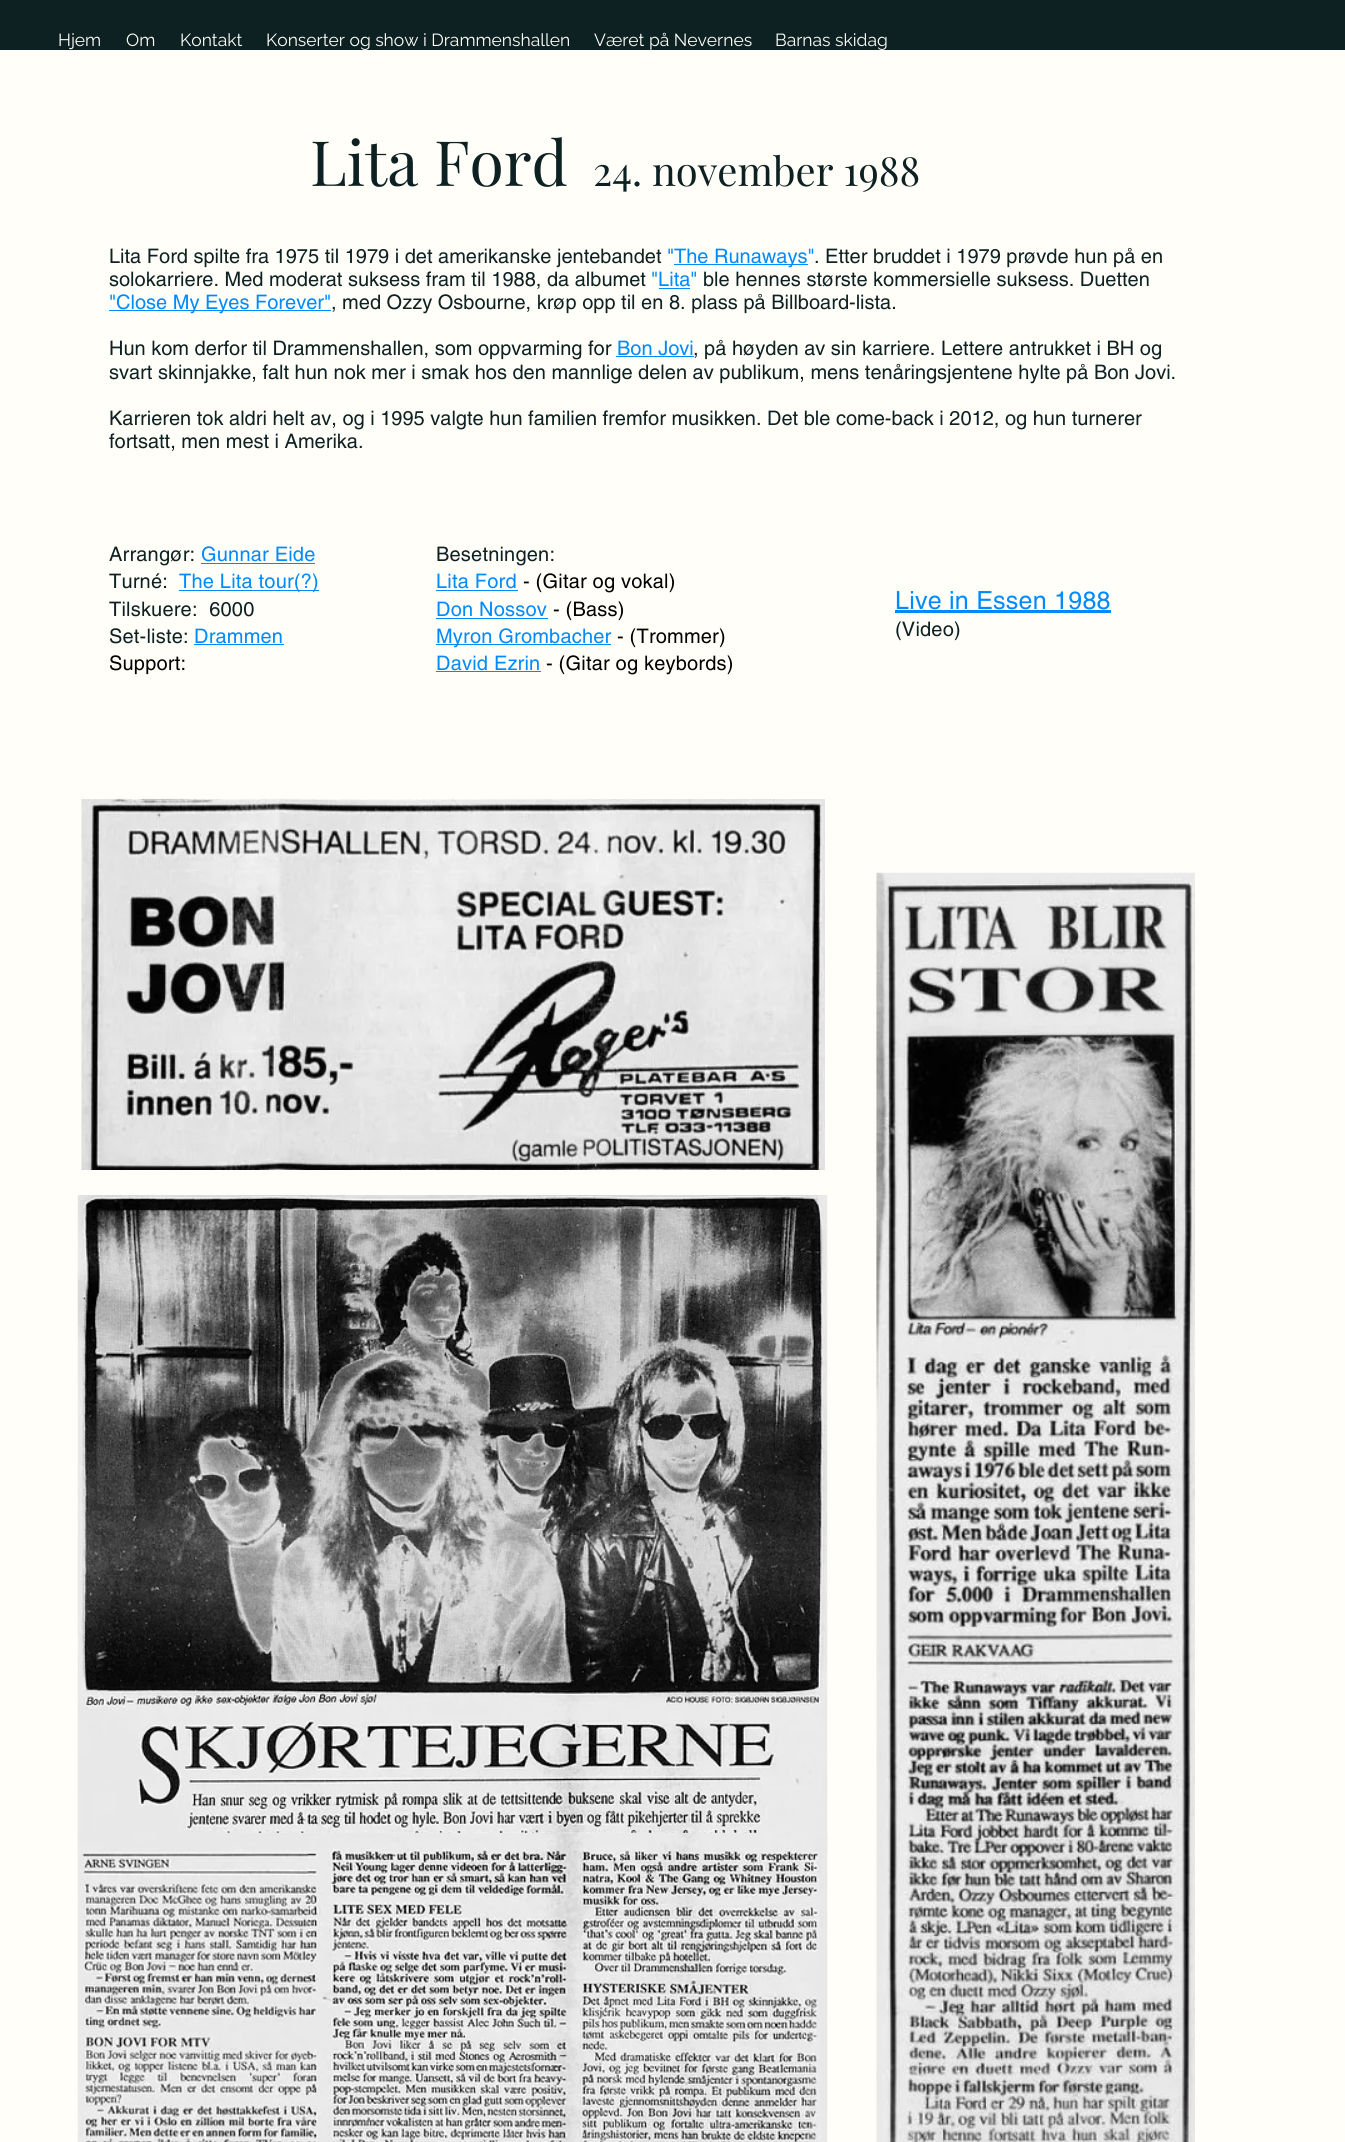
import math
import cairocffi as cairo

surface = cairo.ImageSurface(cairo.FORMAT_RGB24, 1345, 2142)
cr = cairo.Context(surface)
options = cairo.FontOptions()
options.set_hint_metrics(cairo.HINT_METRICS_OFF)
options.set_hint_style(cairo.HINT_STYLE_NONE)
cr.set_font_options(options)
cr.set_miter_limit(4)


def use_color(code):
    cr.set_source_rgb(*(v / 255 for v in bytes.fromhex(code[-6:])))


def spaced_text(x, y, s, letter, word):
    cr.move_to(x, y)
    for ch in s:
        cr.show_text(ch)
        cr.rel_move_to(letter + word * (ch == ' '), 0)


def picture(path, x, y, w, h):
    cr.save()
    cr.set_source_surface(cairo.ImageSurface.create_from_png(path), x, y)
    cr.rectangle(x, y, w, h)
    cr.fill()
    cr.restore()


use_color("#fffef8")
cr.paint()
use_color("#0d2123")
cr.rectangle(0, 0, 1345, 50)
cr.fill()
cr.select_font_face("Raleway")
cr.set_font_size(17.5)
use_color("#fffef8")
cr.move_to(58, 46)
cr.show_text("Hjem")
cr.move_to(126, 46)
cr.show_text("Om")
cr.move_to(180, 46)
cr.show_text("Kontakt")
cr.move_to(266, 46)
cr.show_text("Konserter og show i Drammenshallen")
cr.move_to(594, 46)
cr.show_text("Været på Nevernes")
cr.move_to(775, 46)
cr.show_text("Barnas skidag")
cr.select_font_face("Playfair Display")
cr.set_font_size(62.5)
use_color("#0d2123")
cr.move_to(310, 186)
cr.show_text("Lita Ford")
cr.set_font_size(40)
cr.move_to(593, 186)
cr.show_text("24. november 1988")
cr.select_font_face("helvetica")
cr.set_font_size(20)
cr.move_to(109, 263)
cr.show_text("Lita Ford spilte fra 1975 til 1979 i det amerikanske jentebandet")
use_color("#008afc")
cr.move_to(667, 263)
cr.show_text("\"")
cr.rectangle(674, 264, 134, 1)
cr.fill()
cr.move_to(674, 263)
cr.show_text("The Runaways\"")
use_color("#0d2123")
cr.move_to(814, 263)
cr.show_text(". Etter bruddet i 1979 prøvde hun på en")
cr.move_to(109, 286)
cr.show_text("solokarriere. Med moderat suksess fram til 1988, da albumet")
use_color("#008afc")
cr.move_to(651, 286)
cr.show_text("\"Lita\"")
cr.rectangle(659, 288, 31, 1)
cr.fill()
use_color("#0d2123")
cr.move_to(703, 286)
cr.show_text("ble hennes største kommersielle suksess. Duetten")
use_color("#008afc")
cr.rectangle(109, 310, 222, 1)
cr.fill()
cr.move_to(109, 309)
cr.show_text("\"Close My Eyes Forever\"")
use_color("#0d2123")
cr.move_to(331, 309)
cr.show_text(", med Ozzy Osbourne, krøp opp til en 8. plass på Billboard-lista.")
cr.move_to(109, 355)
cr.show_text("Hun kom derfor til Drammenshallen, som oppvarming for")
use_color("#008afc")
cr.move_to(617, 355)
cr.show_text("Bon Jovi")
use_color("#0d2123")
cr.move_to(693, 355)
cr.show_text(", på høyden av sin karriere. Lettere antrukket i BH og")
use_color("#008afc")
cr.rectangle(616, 356, 78, 1)
cr.fill()
use_color("#0d2123")
cr.move_to(109, 379)
cr.show_text("svart skinnjakke, falt hun nok mer i smak hos den mannlige delen av publikum, mens tenåringsjentene hylte på Bon Jovi.")
cr.move_to(109, 425)
cr.show_text("Karrieren tok aldri helt av, og i 1995 valgte hun familien fremfor musikken. Det ble come-back i 2012, og hun turnerer")
cr.move_to(109, 448)
cr.show_text("fortsatt, men mest i Amerika.")
spaced_text(109, 561, "Arrangør:", 0.2, 0)
use_color("#008afc")
spaced_text(201, 561, "Gunnar Eide", 0.2, 0)
cr.rectangle(201, 563, 114, 1)
cr.fill()
use_color("#0d2123")
spaced_text(109, 588, "Turné:", 0.2, 0)
use_color("#008afc")
cr.rectangle(179, 590, 140, 1)
cr.fill()
spaced_text(179, 588, "The Lita tour(?)", 0.2, 0)
use_color("#0d2123")
spaced_text(109, 616, "Tilskuere:  6000", 0.2, 0)
spaced_text(109, 643, "Set-liste:", 0.2, 0)
use_color("#008afc")
spaced_text(194, 643, "Drammen", 0.2, 0)
cr.rectangle(194, 644, 90, 1)
cr.fill()
use_color("#000000")
spaced_text(109, 670, "Support:", 0.2, 0)
use_color("#0d2123")
spaced_text(436, 561, "Besetningen:", 0.2, 0)
use_color("#008afc")
spaced_text(436, 588, "Lita Ford", 0.2, 0)
cr.rectangle(436, 590, 82, 1)
cr.fill()
use_color("#000000")
spaced_text(523, 588, "- (Gitar og vokal)", 0.2, 0)
use_color("#008afc")
spaced_text(436, 616, "Don Nossov", 0.2, 0)
cr.rectangle(436, 618, 112, 1)
cr.fill()
use_color("#000000")
spaced_text(553, 616, "- (Bass)", 0.2, 0)
use_color("#008afc")
cr.rectangle(436, 644, 175, 1)
cr.fill()
spaced_text(436, 643, "Myron Grombacher", 0.2, 0)
use_color("#000000")
spaced_text(617, 643, "- (Trommer)", 0.2, 0)
use_color("#008afc")
spaced_text(436, 670, "David Ezrin", 0.2, 0)
cr.rectangle(436, 671, 105, 1)
cr.fill()
use_color("#000000")
spaced_text(546, 670, "- (Gitar og keybords)", 0.2, 0)
cr.set_font_size(25)
use_color("#008afc")
spaced_text(895, 609, "Live in Essen 1988", 0.25, 0)
cr.rectangle(895, 610, 216, 3)
cr.fill()
cr.set_font_size(20)
use_color("#0d2123")
spaced_text(895, 636, "(Video)", 0.2, 0)
picture("img1.png", 81, 798, 744, 372)
picture("img2.png", 876, 872, 319, 1270)
picture("img3.png", 77, 1195, 751, 659)
picture("img4.png", 77, 1832, 751, 310)
surface.write_to_png("result.png")
